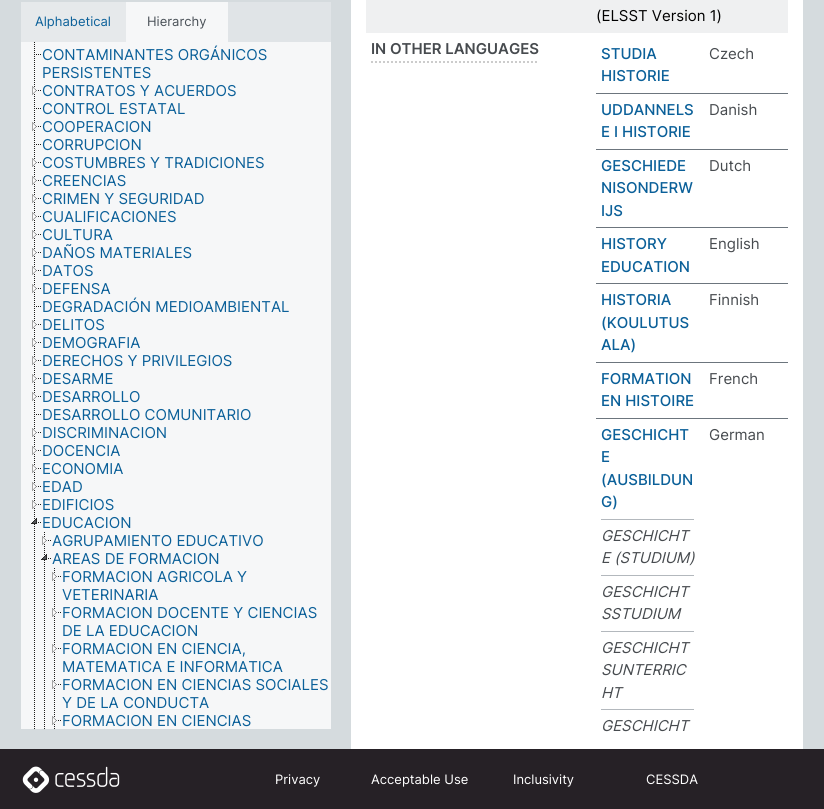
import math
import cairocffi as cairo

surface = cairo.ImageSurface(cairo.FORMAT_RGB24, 824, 809)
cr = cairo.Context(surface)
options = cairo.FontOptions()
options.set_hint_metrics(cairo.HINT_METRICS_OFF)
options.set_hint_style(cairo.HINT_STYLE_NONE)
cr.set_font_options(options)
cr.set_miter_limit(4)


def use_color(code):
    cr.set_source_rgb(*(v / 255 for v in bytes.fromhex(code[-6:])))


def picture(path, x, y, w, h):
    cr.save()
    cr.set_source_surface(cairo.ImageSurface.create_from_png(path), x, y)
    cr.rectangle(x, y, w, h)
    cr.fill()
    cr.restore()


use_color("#d5dbde")
cr.paint()
use_color("#e0e4e7")
cr.rectangle(228, 2, 103, 40)
cr.fill()
use_color("#e6e9eb")
cr.rectangle(21, 2, 105, 40)
cr.fill()
cr.select_font_face("Inter")
cr.set_font_size(13)
use_color("#0b6099")
cr.move_to(35, 26)
cr.show_text("Alphabetical")
use_color("#f6f7f8")
cr.rectangle(126, 2, 102, 40)
cr.fill()
use_color("#495057")
cr.move_to(147, 26)
cr.show_text("Hierarchy")
use_color("#f6f7f8")
cr.rectangle(21, 42, 310, 687)
cr.fill()
picture("img1.png", 34, 42, 1, 3)
picture("img2.png", 34, 46, 1, 35)
picture("img3.png", 36, 54, 5, 1)
cr.set_font_size(15)
use_color("#0b6099")
cr.move_to(42, 60)
cr.show_text("CONTAMINANTES ORGÁNICOS")
cr.move_to(42, 78)
cr.show_text("PERSISTENTES")
picture("img4.png", 34, 82, 1, 17)
picture("img5.png", 32, 86, 9, 9)
cr.move_to(42, 96)
cr.show_text("CONTRATOS Y ACUERDOS")
picture("img4.png", 34, 100, 1, 17)
picture("img3.png", 36, 108, 5, 1)
cr.move_to(42, 114)
cr.show_text("CONTROL ESTATAL")
picture("img4.png", 34, 118, 1, 17)
picture("img5.png", 32, 122, 9, 9)
cr.move_to(42, 132)
cr.show_text("COOPERACION")
picture("img4.png", 34, 136, 1, 17)
picture("img3.png", 36, 144, 5, 1)
cr.move_to(42, 150)
cr.show_text("CORRUPCION")
picture("img4.png", 34, 154, 1, 17)
picture("img5.png", 32, 158, 9, 9)
cr.move_to(42, 168)
cr.show_text("COSTUMBRES Y TRADICIONES")
picture("img4.png", 34, 172, 1, 17)
picture("img5.png", 32, 176, 9, 9)
cr.move_to(42, 186)
cr.show_text("CREENCIAS")
picture("img4.png", 34, 190, 1, 17)
picture("img5.png", 32, 194, 9, 9)
cr.move_to(42, 204)
cr.show_text("CRIMEN Y SEGURIDAD")
picture("img4.png", 34, 208, 1, 17)
picture("img5.png", 32, 212, 9, 9)
cr.move_to(42, 222)
cr.show_text("CUALIFICACIONES")
picture("img4.png", 34, 226, 1, 17)
picture("img5.png", 32, 230, 9, 9)
cr.move_to(42, 240)
cr.show_text("CULTURA")
picture("img4.png", 34, 244, 1, 17)
picture("img5.png", 32, 248, 9, 9)
cr.move_to(42, 258)
cr.show_text("DAÑOS MATERIALES")
picture("img4.png", 34, 262, 1, 17)
picture("img5.png", 32, 266, 9, 9)
cr.move_to(42, 276)
cr.show_text("DATOS")
picture("img4.png", 34, 280, 1, 17)
picture("img5.png", 32, 284, 9, 9)
cr.move_to(42, 294)
cr.show_text("DEFENSA")
picture("img4.png", 34, 298, 1, 17)
picture("img3.png", 36, 306, 5, 1)
cr.move_to(42, 312)
cr.show_text("DEGRADACIÓN MEDIOAMBIENTAL")
picture("img4.png", 34, 316, 1, 17)
picture("img5.png", 32, 320, 9, 9)
cr.move_to(42, 330)
cr.show_text("DELITOS")
picture("img4.png", 34, 334, 1, 17)
picture("img5.png", 32, 338, 9, 9)
cr.move_to(42, 348)
cr.show_text("DEMOGRAFIA")
picture("img4.png", 34, 352, 1, 17)
picture("img5.png", 32, 356, 9, 9)
cr.move_to(42, 366)
cr.show_text("DERECHOS Y PRIVILEGIOS")
picture("img4.png", 34, 370, 1, 17)
picture("img5.png", 32, 374, 9, 9)
cr.move_to(42, 384)
cr.show_text("DESARME")
picture("img4.png", 34, 388, 1, 17)
picture("img5.png", 32, 392, 9, 9)
cr.move_to(42, 402)
cr.show_text("DESARROLLO")
picture("img4.png", 34, 406, 1, 17)
picture("img3.png", 36, 414, 5, 1)
cr.move_to(42, 420)
cr.show_text("DESARROLLO COMUNITARIO")
picture("img4.png", 34, 424, 1, 17)
picture("img5.png", 32, 428, 9, 9)
cr.move_to(42, 438)
cr.show_text("DISCRIMINACION")
picture("img4.png", 34, 442, 1, 17)
picture("img5.png", 32, 446, 9, 9)
cr.move_to(42, 456)
cr.show_text("DOCENCIA")
picture("img4.png", 34, 460, 1, 17)
picture("img5.png", 32, 464, 9, 9)
cr.move_to(42, 474)
cr.show_text("ECONOMIA")
picture("img4.png", 34, 478, 1, 17)
picture("img5.png", 32, 482, 9, 9)
cr.move_to(42, 492)
cr.show_text("EDAD")
picture("img4.png", 34, 496, 1, 17)
picture("img5.png", 32, 500, 9, 9)
cr.move_to(42, 510)
cr.show_text("EDIFICIOS")
picture("img6.png", 34, 514, 1, 215)
picture("img7.png", 31, 518, 10, 6)
cr.move_to(42, 528)
cr.show_text("EDUCACION")
picture("img4.png", 44, 532, 1, 17)
picture("img5.png", 42, 536, 9, 9)
cr.move_to(52, 546)
cr.show_text("AGRUPAMIENTO EDUCATIVO")
picture("img8.png", 44, 550, 1, 179)
picture("img7.png", 41, 554, 10, 6)
cr.move_to(52, 564)
cr.show_text("AREAS DE FORMACION")
picture("img2.png", 54, 568, 1, 35)
picture("img5.png", 52, 572, 9, 9)
cr.move_to(62, 582)
cr.show_text("FORMACION AGRICOLA Y")
cr.move_to(62, 600)
cr.show_text("VETERINARIA")
picture("img2.png", 54, 604, 1, 35)
picture("img5.png", 52, 608, 9, 9)
cr.move_to(62, 618)
cr.show_text("FORMACION DOCENTE Y CIENCIAS")
cr.move_to(62, 636)
cr.show_text("DE LA EDUCACION")
picture("img2.png", 54, 640, 1, 35)
picture("img5.png", 52, 644, 9, 9)
cr.move_to(62, 654)
cr.show_text("FORMACION EN CIENCIA,")
cr.move_to(62, 672)
cr.show_text("MATEMATICA E INFORMATICA")
picture("img2.png", 54, 676, 1, 35)
picture("img5.png", 52, 680, 9, 9)
cr.move_to(62, 690)
cr.show_text("FORMACION EN CIENCIAS SOCIALES")
cr.move_to(62, 708)
cr.show_text("Y DE LA CONDUCTA")
picture("img4.png", 54, 712, 1, 17)
picture("img5.png", 52, 716, 9, 9)
cr.move_to(62, 726)
cr.show_text("FORMACION EN CIENCIAS")
use_color("#ffffff")
cr.rectangle(351, 0, 452, 749)
cr.fill()
use_color("#eff0f1")
cr.rectangle(366, 0, 422, 33)
cr.fill()
use_color("#000000")
cr.move_to(596, 21)
cr.show_text("(ELSST Version 1)")
cr.new_path()
cr.move_to(371, 62)
cr.line_to(539, 62)
use_color("#cccccc")
cr.set_dash([2, 2])
cr.stroke()
cr.select_font_face("Inter SemiBold")
use_color("#474b4f")
cr.move_to(371, 54)
cr.show_text("IN OTHER LANGUAGES")
cr.select_font_face("Inter Medium")
use_color("#0b6099")
cr.move_to(601, 59)
cr.show_text("STUDIA")
cr.move_to(601, 81)
cr.show_text("HISTORIE")
cr.select_font_face("Inter")
use_color("#474b4f")
cr.move_to(709, 59)
cr.show_text("Czech")
use_color("#6c757d")
cr.rectangle(596, 93, 192, 1)
cr.fill()
cr.select_font_face("Inter Medium")
use_color("#0b6099")
cr.move_to(601, 115)
cr.show_text("UDDANNELS")
cr.move_to(601, 137)
cr.show_text("E I HISTORIE")
cr.select_font_face("Inter")
use_color("#474b4f")
cr.move_to(709, 115)
cr.show_text("Danish")
use_color("#6c757d")
cr.rectangle(596, 149, 192, 1)
cr.fill()
cr.select_font_face("Inter Medium")
use_color("#0b6099")
cr.move_to(601, 171)
cr.show_text("GESCHIEDE")
cr.move_to(601, 193)
cr.show_text("NISONDERW")
cr.move_to(601, 216)
cr.show_text("IJS")
cr.select_font_face("Inter")
use_color("#474b4f")
cr.move_to(709, 171)
cr.show_text("Dutch")
use_color("#6c757d")
cr.rectangle(596, 227, 192, 1)
cr.fill()
cr.select_font_face("Inter Medium")
use_color("#0b6099")
cr.move_to(601, 249)
cr.show_text("HISTORY")
cr.move_to(601, 272)
cr.show_text("EDUCATION")
cr.select_font_face("Inter")
use_color("#474b4f")
cr.move_to(709, 249)
cr.show_text("English")
use_color("#6c757d")
cr.rectangle(596, 283, 192, 1)
cr.fill()
cr.select_font_face("Inter Medium")
use_color("#0b6099")
cr.move_to(601, 305)
cr.show_text("HISTORIA")
cr.move_to(601, 328)
cr.show_text("(KOULUTUS")
cr.move_to(601, 350)
cr.show_text("ALA)")
cr.select_font_face("Inter")
use_color("#474b4f")
cr.move_to(709, 305)
cr.show_text("Finnish")
use_color("#6c757d")
cr.rectangle(596, 362, 192, 1)
cr.fill()
cr.select_font_face("Inter Medium")
use_color("#0b6099")
cr.move_to(601, 384)
cr.show_text("FORMATION")
cr.move_to(601, 406)
cr.show_text("EN HISTOIRE")
cr.select_font_face("Inter")
use_color("#474b4f")
cr.move_to(709, 384)
cr.show_text("French")
use_color("#6c757d")
cr.rectangle(596, 418, 192, 1)
cr.fill()
cr.select_font_face("Inter Medium")
use_color("#0b6099")
cr.move_to(601, 440)
cr.show_text("GESCHICHT")
cr.move_to(601, 462)
cr.show_text("E")
cr.move_to(601, 485)
cr.show_text("(AUSBILDUN")
cr.move_to(601, 507)
cr.show_text("G)")
cr.select_font_face("Inter")
use_color("#474b4f")
cr.move_to(709, 440)
cr.show_text("German")
use_color("#b3b8bd")
cr.rectangle(601, 519, 93, 1)
cr.fill()
cr.select_font_face("Inter", cairo.FONT_SLANT_ITALIC)
use_color("#474b4f")
cr.move_to(601, 541)
cr.show_text("GESCHICHT")
cr.move_to(601, 563)
cr.show_text("E (STUDIUM)")
use_color("#b3b8bd")
cr.rectangle(601, 575, 93, 1)
cr.fill()
use_color("#474b4f")
cr.move_to(601, 597)
cr.show_text("GESCHICHT")
cr.move_to(601, 619)
cr.show_text("SSTUDIUM")
use_color("#b3b8bd")
cr.rectangle(601, 631, 93, 1)
cr.fill()
use_color("#474b4f")
cr.move_to(601, 653)
cr.show_text("GESCHICHT")
cr.move_to(601, 675)
cr.show_text("SUNTERRIC")
cr.move_to(601, 698)
cr.show_text("HT")
use_color("#b3b8bd")
cr.rectangle(601, 709, 93, 1)
cr.fill()
use_color("#474b4f")
cr.move_to(601, 731)
cr.show_text("GESCHICHT")
use_color("#262126")
cr.rectangle(0, 749, 824, 60)
cr.fill()
picture("img9.png", 22, 766, 98, 27)
cr.select_font_face("Inter")
cr.set_font_size(13)
use_color("#ffffff")
cr.move_to(275, 784)
cr.show_text("Privacy")
cr.move_to(371, 784)
cr.show_text("Acceptable Use")
cr.move_to(513, 784)
cr.show_text("Inclusivity")
cr.move_to(646, 784)
cr.show_text("CESSDA")
surface.write_to_png("result.png")
